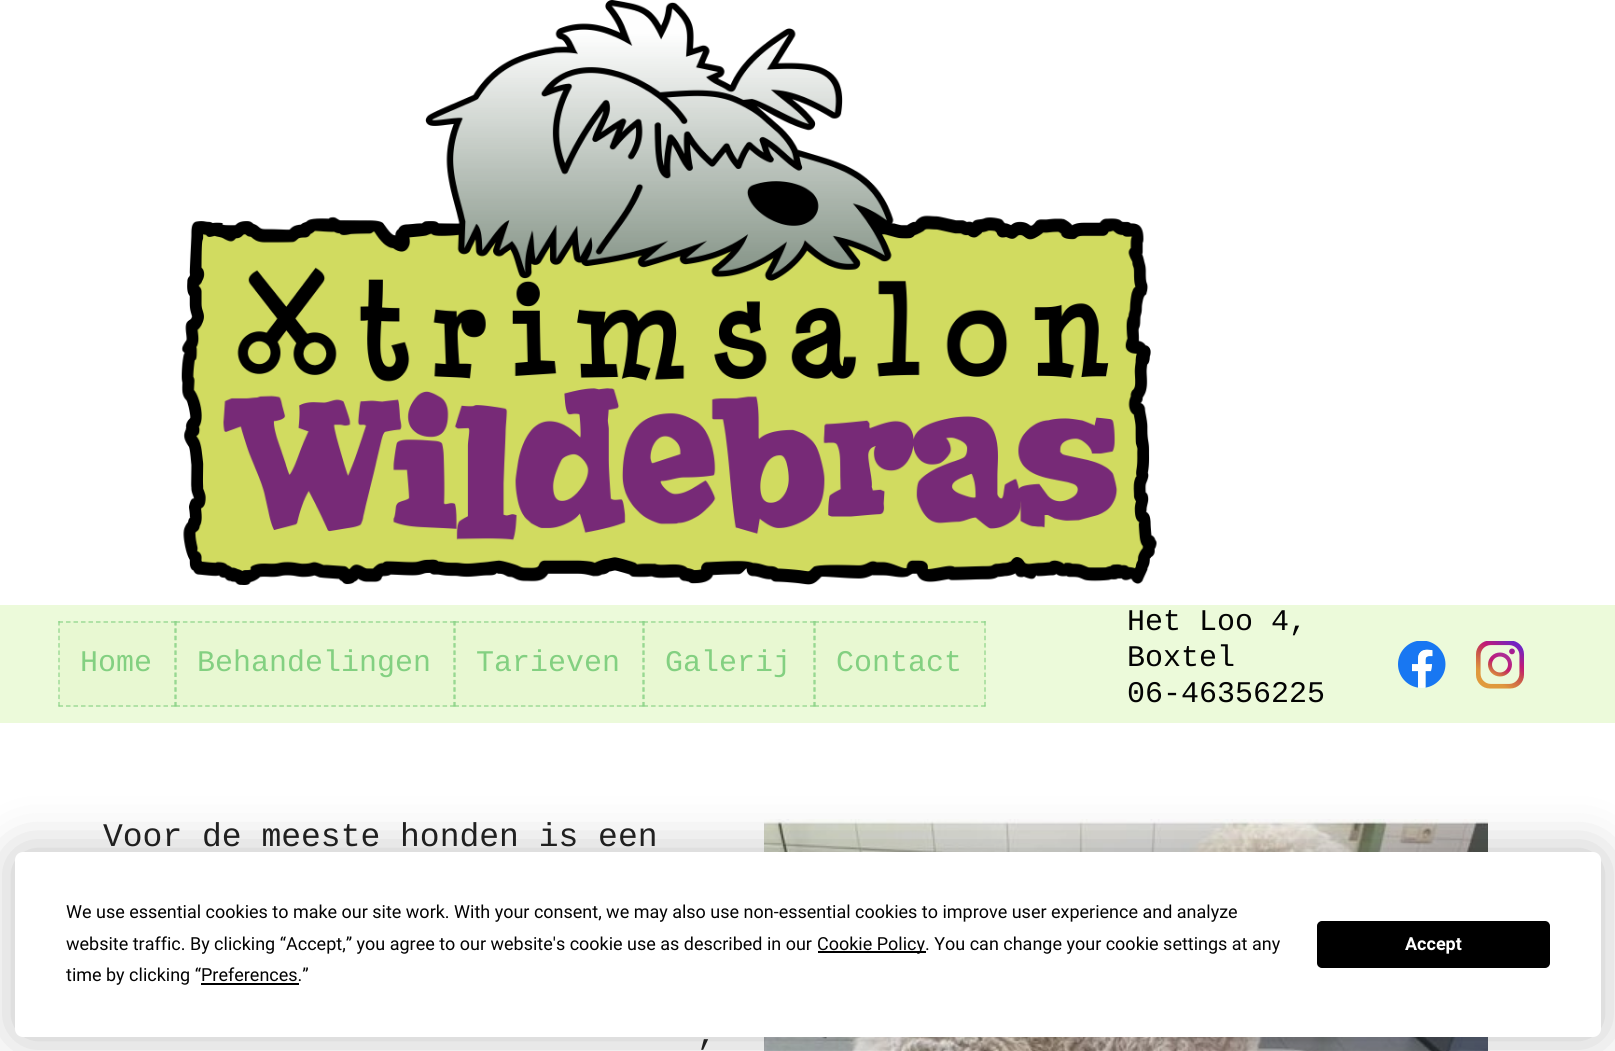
import math
import cairocffi as cairo

surface = cairo.ImageSurface(cairo.FORMAT_RGB24, 1615, 1051)
cr = cairo.Context(surface)
options = cairo.FontOptions()
options.set_hint_metrics(cairo.HINT_METRICS_OFF)
options.set_hint_style(cairo.HINT_STYLE_NONE)
cr.set_font_options(options)
cr.set_miter_limit(4)


def use_color(code):
    cr.set_source_rgb(*(v / 255 for v in bytes.fromhex(code[-6:])))


def round_rect(x, y, w, h, r):
    cr.new_sub_path()
    for i, (u, v) in enumerate([(x + w - r, y + h - r), (x + r, y + h - r), (x + r, y + r), (x + w - r, y + r)]):
        cr.arc(u, v, r, i * math.pi / 2, (i + 1) * math.pi / 2)
    cr.close_path()


def shadow(x, y, w, h, r, blur, alpha):
    cr.push_group_with_content(cairo.CONTENT_ALPHA)
    cr.set_operator(cairo.OPERATOR_SOURCE)
    for i in range(15, -16, -2):
        e = blur * i / 6
        if min(w, h) + 2 * e > 0:
            cr.set_source_rgba(0, 0, 0, alpha * math.erfc((i - 1) / 8.5) / 2)
            round_rect(x - e, y - e, w + 2 * e, h + 2 * e, max(0, min(r + e + blur * .6, min(w, h) / 2 + e)))
            cr.fill()
    cr.mask(cr.pop_group())


def picture(path, x, y, w, h):
    cr.save()
    cr.set_source_surface(cairo.ImageSurface.create_from_png(path), x, y)
    cr.rectangle(x, y, w, h)
    cr.fill()
    cr.restore()


use_color("#ffffff")
cr.paint()
picture("img1.png", 181, 0, 976, 585)
use_color("#ecfada")
cr.rectangle(0, 605, 1615, 118)
cr.fill()
use_color("#e8f8d2")
cr.rectangle(59, 621, 927, 86)
cr.fill()
cr.new_path()
cr.move_to(58.5, 622)
cr.line_to(175.5, 622)
use_color("#9edb97")
cr.set_line_width(1.5)
cr.set_dash([4.5, 3])
cr.stroke()
cr.new_path()
cr.move_to(175, 621)
cr.line_to(175, 706.5)
cr.set_source_rgba(0.514, 0.816, 0.506, 0.73)
cr.set_dash([4.5, 2.86])
cr.stroke()
cr.new_path()
cr.move_to(58.5, 706)
cr.line_to(175.5, 706)
cr.set_dash([4.5, 3])
cr.stroke()
cr.new_path()
cr.move_to(59, 621)
cr.line_to(59, 706.5)
cr.set_dash([4.5, 2.86])
cr.stroke()
cr.select_font_face("Liberation Mono")
cr.set_font_size(30)
use_color("#83d081")
cr.move_to(80, 671)
cr.show_text("Home")
cr.new_path()
cr.move_to(175.5, 622)
cr.line_to(454.5, 622)
use_color("#9edb97")
cr.set_dash([4.5, 2.92])
cr.stroke()
cr.new_path()
cr.move_to(454, 621)
cr.line_to(454, 706.5)
cr.set_source_rgba(0.514, 0.816, 0.506, 0.73)
cr.set_dash([4.5, 2.86])
cr.stroke()
cr.new_path()
cr.move_to(175.5, 706)
cr.line_to(454.5, 706)
cr.set_dash([4.5, 2.92])
cr.stroke()
cr.new_path()
cr.move_to(176, 621)
cr.line_to(176, 706.5)
cr.set_dash([4.5, 2.86])
cr.stroke()
use_color("#83d081")
cr.move_to(197, 671)
cr.show_text("Behandelingen")
cr.new_path()
cr.move_to(454.5, 622)
cr.line_to(643.5, 622)
use_color("#9edb97")
cr.set_dash([4.5, 2.88])
cr.stroke()
cr.new_path()
cr.move_to(643, 621)
cr.line_to(643, 706.5)
cr.set_source_rgba(0.514, 0.816, 0.506, 0.73)
cr.set_dash([4.5, 2.86])
cr.stroke()
cr.new_path()
cr.move_to(454.5, 706)
cr.line_to(643.5, 706)
cr.set_dash([4.5, 2.88])
cr.stroke()
cr.new_path()
cr.move_to(455, 621)
cr.line_to(455, 706.5)
cr.set_dash([4.5, 2.86])
cr.stroke()
use_color("#83d081")
cr.move_to(476, 671)
cr.show_text("Tarieven")
cr.new_path()
cr.move_to(643.5, 622)
cr.line_to(814.5, 622)
use_color("#9edb97")
cr.set_dash([4.5, 3.07])
cr.stroke()
cr.new_path()
cr.move_to(814, 621)
cr.line_to(814, 706.5)
cr.set_source_rgba(0.514, 0.816, 0.506, 0.73)
cr.set_dash([4.5, 2.86])
cr.stroke()
cr.new_path()
cr.move_to(643.5, 706)
cr.line_to(814.5, 706)
cr.set_dash([4.5, 3.07])
cr.stroke()
cr.new_path()
cr.move_to(644, 621)
cr.line_to(644, 706.5)
cr.set_dash([4.5, 2.86])
cr.stroke()
use_color("#83d081")
cr.move_to(665, 671)
cr.show_text("Galerij")
cr.new_path()
cr.move_to(814.5, 622)
cr.line_to(985.5, 622)
use_color("#9edb97")
cr.set_dash([4.5, 3.07])
cr.stroke()
cr.new_path()
cr.move_to(985, 621)
cr.line_to(985, 706.5)
cr.set_source_rgba(0.514, 0.816, 0.506, 0.73)
cr.set_dash([4.5, 2.86])
cr.stroke()
cr.new_path()
cr.move_to(814.5, 706)
cr.line_to(985.5, 706)
cr.set_dash([4.5, 3.07])
cr.stroke()
cr.new_path()
cr.move_to(815, 621)
cr.line_to(815, 706.5)
cr.set_dash([4.5, 2.86])
cr.stroke()
use_color("#83d081")
cr.move_to(836, 671)
cr.show_text("Contact")
use_color("#030303")
cr.move_to(1127, 630)
cr.show_text("Het Loo 4,")
cr.move_to(1127, 666)
cr.show_text("Boxtel")
cr.move_to(1127, 702)
cr.show_text("06-46356225")
picture("img2.png", 1398, 641, 48, 47)
picture("img3.png", 1476, 641, 48, 48)
cr.set_font_size(33)
use_color("#222222")
cr.move_to(103, 846)
cr.show_text("Voor de meeste honden is een")
cr.move_to(697, 1044)
cr.show_text(",")
picture("img4.png", 764, 819, 724, 232)
use_color("#000000")
shadow(15, 852, 1586, 185, 8, 26, 0.25)
use_color("#ffffff")
round_rect(15, 852, 1586, 185, 8)
cr.fill()
cr.select_font_face("Roboto")
cr.set_font_size(18)
use_color("#030303")
cr.move_to(66, 918)
cr.show_text("We use essential cookies to make our site work. With your consent, we may also use non-essential cookies to improve user experience and analyze")
cr.move_to(66, 950)
cr.show_text("website traffic. By clicking “Accept,” you agree to our website's cookie use as described in our")
use_color("#000000")
cr.rectangle(818, 951, 108, 2)
cr.fill()
use_color("#030303")
cr.move_to(817, 950)
cr.show_text("Cookie Policy. You can change your cookie settings at any")
cr.move_to(66, 981)
cr.show_text("time by clicking “Preferences.”")
use_color("#000000")
cr.rectangle(201, 983, 98, 2)
cr.fill()
round_rect(1318, 922, 231, 45, 4)
cr.fill_preserve()
cr.set_line_width(2)
cr.set_dash([])
cr.stroke()
cr.select_font_face("Roboto", cairo.FONT_SLANT_NORMAL, cairo.FONT_WEIGHT_BOLD)
use_color("#ffffff")
cr.move_to(1405, 950)
cr.show_text("Accept")
surface.write_to_png("result.png")
